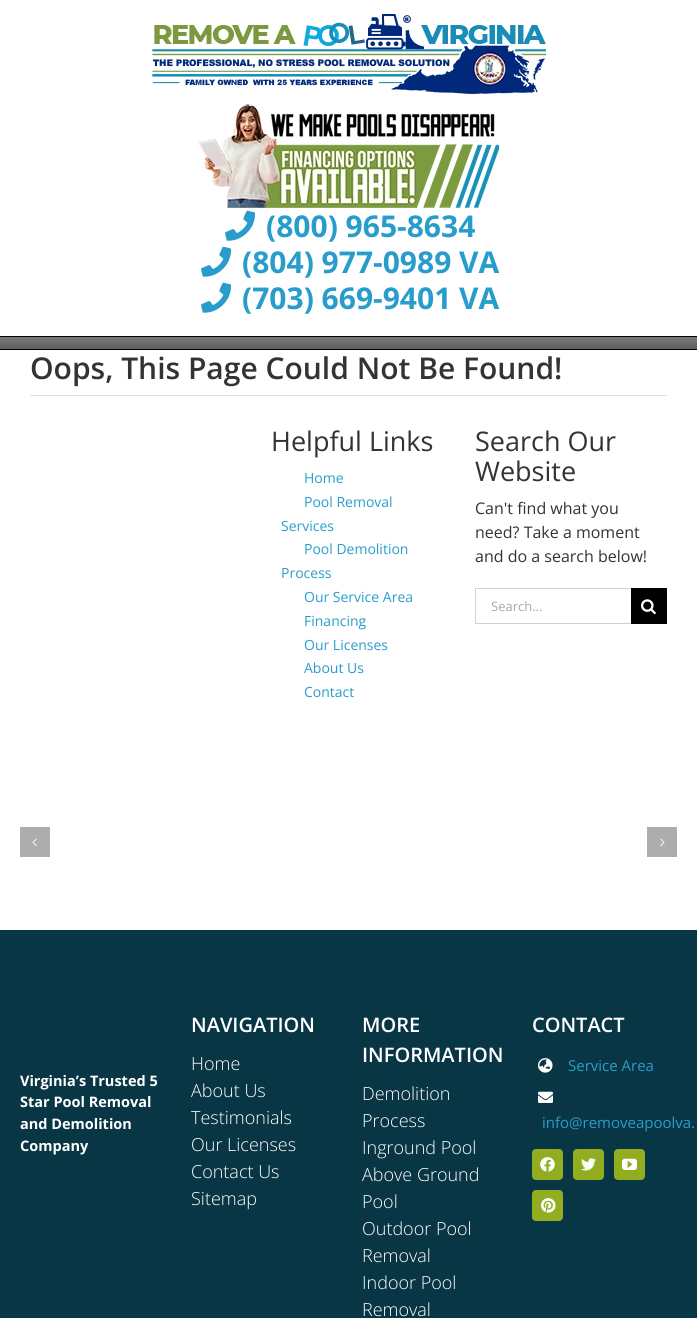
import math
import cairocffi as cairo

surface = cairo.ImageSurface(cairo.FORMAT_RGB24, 697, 1318)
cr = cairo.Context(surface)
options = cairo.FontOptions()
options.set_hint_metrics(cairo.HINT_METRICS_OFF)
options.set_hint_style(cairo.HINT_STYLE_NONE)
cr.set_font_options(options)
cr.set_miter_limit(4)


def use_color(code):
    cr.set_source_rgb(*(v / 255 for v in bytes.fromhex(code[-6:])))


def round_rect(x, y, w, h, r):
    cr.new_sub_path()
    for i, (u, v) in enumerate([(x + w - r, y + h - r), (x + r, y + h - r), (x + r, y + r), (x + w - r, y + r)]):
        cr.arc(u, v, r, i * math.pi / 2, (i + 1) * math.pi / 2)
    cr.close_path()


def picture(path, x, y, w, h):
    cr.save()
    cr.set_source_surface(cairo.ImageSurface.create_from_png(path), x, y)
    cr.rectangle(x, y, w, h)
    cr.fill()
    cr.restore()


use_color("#ffffff")
cr.paint()
use_color("#010101")
cr.rectangle(0, 336, 697, 1)
cr.fill()
picture("img1.png", 152, 14, 394, 80)
picture("img2.png", 199, 104, 300, 104)
picture("img3.png", 225, 210, 31, 31)
cr.select_font_face("Open Sans", cairo.FONT_SLANT_NORMAL, cairo.FONT_WEIGHT_BOLD)
cr.set_font_size(30)
use_color("#289dcc")
cr.move_to(266, 237)
cr.show_text("(800) 965-8634")
picture("img3.png", 201, 246, 31, 31)
cr.move_to(242, 273)
cr.show_text("(804) 977-0989 VA")
picture("img3.png", 201, 282, 31, 31)
cr.move_to(242, 309)
cr.show_text("(703) 669-9401 VA")
picture("img4.png", 0, 337, 697, 12)
use_color("#010101")
cr.rectangle(0, 349, 697, 1)
cr.fill()
use_color("#e0dede")
cr.rectangle(30, 395, 637, 1)
cr.fill()
cr.select_font_face("Open Sans SemiBold")
use_color("#333333")
cr.move_to(30, 379)
cr.show_text("Oops, This Page Could Not Be Found!")
cr.select_font_face("Open Sans")
cr.set_font_size(27)
cr.move_to(271, 451)
cr.show_text("Helpful Links")
cr.set_font_size(14)
use_color("#289dcc")
cr.move_to(304, 483)
cr.show_text("Home")
cr.move_to(304, 507)
cr.show_text("Pool Removal")
cr.move_to(281, 531)
cr.show_text("Services")
cr.move_to(304, 554)
cr.show_text("Pool Demolition")
cr.move_to(281, 578)
cr.show_text("Process")
cr.move_to(304, 602)
cr.show_text("Our Service Area")
cr.move_to(304, 626)
cr.show_text("Financing")
cr.move_to(304, 650)
cr.show_text("Our Licenses")
cr.move_to(304, 673)
cr.show_text("About Us")
cr.move_to(304, 697)
cr.show_text("Contact")
cr.set_font_size(27)
use_color("#333333")
cr.move_to(475, 451)
cr.show_text("Search Our")
cr.move_to(475, 481)
cr.show_text("Website")
cr.set_font_size(16)
cr.move_to(475, 514)
cr.show_text("Can't find what you")
cr.move_to(475, 538)
cr.show_text("need? Take a moment")
cr.move_to(475, 562)
cr.show_text("and do a search below!")
use_color("#d2d2d2")
cr.rectangle(475, 588, 156, 1)
cr.fill()
cr.rectangle(475, 623, 156, 1)
cr.fill()
cr.rectangle(475, 588, 1, 36)
cr.fill()
cr.set_font_size(13)
use_color("#aaa9a9")
cr.move_to(491, 611)
cr.show_text("Search...")
use_color("#000000")
cr.rectangle(631, 588, 36, 36)
cr.fill()
picture("img5.png", 641, 599, 15, 16)
use_color("#adadad")
cr.rectangle(20, 827, 30, 30)
cr.fill()
picture("img6.png", 32, 838, 5, 9)
cr.rectangle(647, 827, 30, 30)
cr.fill()
picture("img7.png", 660, 838, 5, 9)
use_color("#093644")
cr.rectangle(0, 930, 697, 388)
cr.fill()
cr.select_font_face("Open Sans", cairo.FONT_SLANT_NORMAL, cairo.FONT_WEIGHT_BOLD)
cr.set_font_size(14.5)
use_color("#ffffff")
cr.move_to(20, 1086)
cr.show_text("Virginia’s Trusted 5")
cr.move_to(20, 1107)
cr.show_text("Star Pool Removal")
cr.move_to(20, 1129)
cr.show_text("and Demolition")
cr.move_to(20, 1151)
cr.show_text("Company")
cr.select_font_face("Open Sans SemiBold")
cr.set_font_size(20)
cr.move_to(191, 1032)
cr.show_text("NAVIGATION")
cr.select_font_face("Open Sans Light")
cr.set_font_size(18)
cr.move_to(191, 1070)
cr.show_text("Home")
cr.move_to(191, 1097)
cr.show_text("About Us")
cr.move_to(191, 1124)
cr.show_text("Testimonials")
cr.move_to(191, 1151)
cr.show_text("Our Licenses")
cr.move_to(191, 1178)
cr.show_text("Contact Us")
cr.move_to(191, 1205)
cr.show_text("Sitemap")
cr.select_font_face("Open Sans SemiBold")
cr.set_font_size(20)
cr.move_to(362, 1032)
cr.show_text("MORE")
cr.move_to(362, 1062)
cr.show_text("INFORMATION")
cr.select_font_face("Open Sans Light")
cr.set_font_size(18)
cr.move_to(362, 1100)
cr.show_text("Demolition")
cr.move_to(362, 1127)
cr.show_text("Process")
cr.move_to(362, 1154)
cr.show_text("Inground Pool")
cr.move_to(362, 1181)
cr.show_text("Above Ground")
cr.move_to(362, 1208)
cr.show_text("Pool")
cr.move_to(362, 1235)
cr.show_text("Outdoor Pool")
cr.move_to(362, 1262)
cr.show_text("Removal")
cr.move_to(362, 1289)
cr.show_text("Indoor Pool")
cr.move_to(362, 1316)
cr.show_text("Removal")
cr.select_font_face("Open Sans SemiBold")
cr.set_font_size(20)
cr.move_to(532, 1032)
cr.show_text("CONTACT")
picture("img8.png", 538, 1058, 15, 15)
cr.select_font_face("Open Sans")
cr.set_font_size(15)
use_color("#289dcc")
cr.move_to(568, 1071)
cr.show_text("Service Area")
picture("img9.png", 538, 1091, 15, 12)
cr.move_to(542, 1128)
cr.show_text("info@removeapoolva.")
use_color("#92ae20")
round_rect(532, 1149, 31, 31, 4)
cr.fill()
picture("img10.png", 540, 1157, 15, 15)
round_rect(573, 1149, 31, 31, 4)
cr.fill()
picture("img11.png", 581, 1158, 15, 13)
round_rect(614, 1149, 31, 31, 4)
cr.fill()
picture("img12.png", 622, 1158, 15, 12)
round_rect(532, 1190, 31, 31, 4)
cr.fill()
picture("img13.png", 541, 1198, 15, 15)
surface.write_to_png("result.png")
